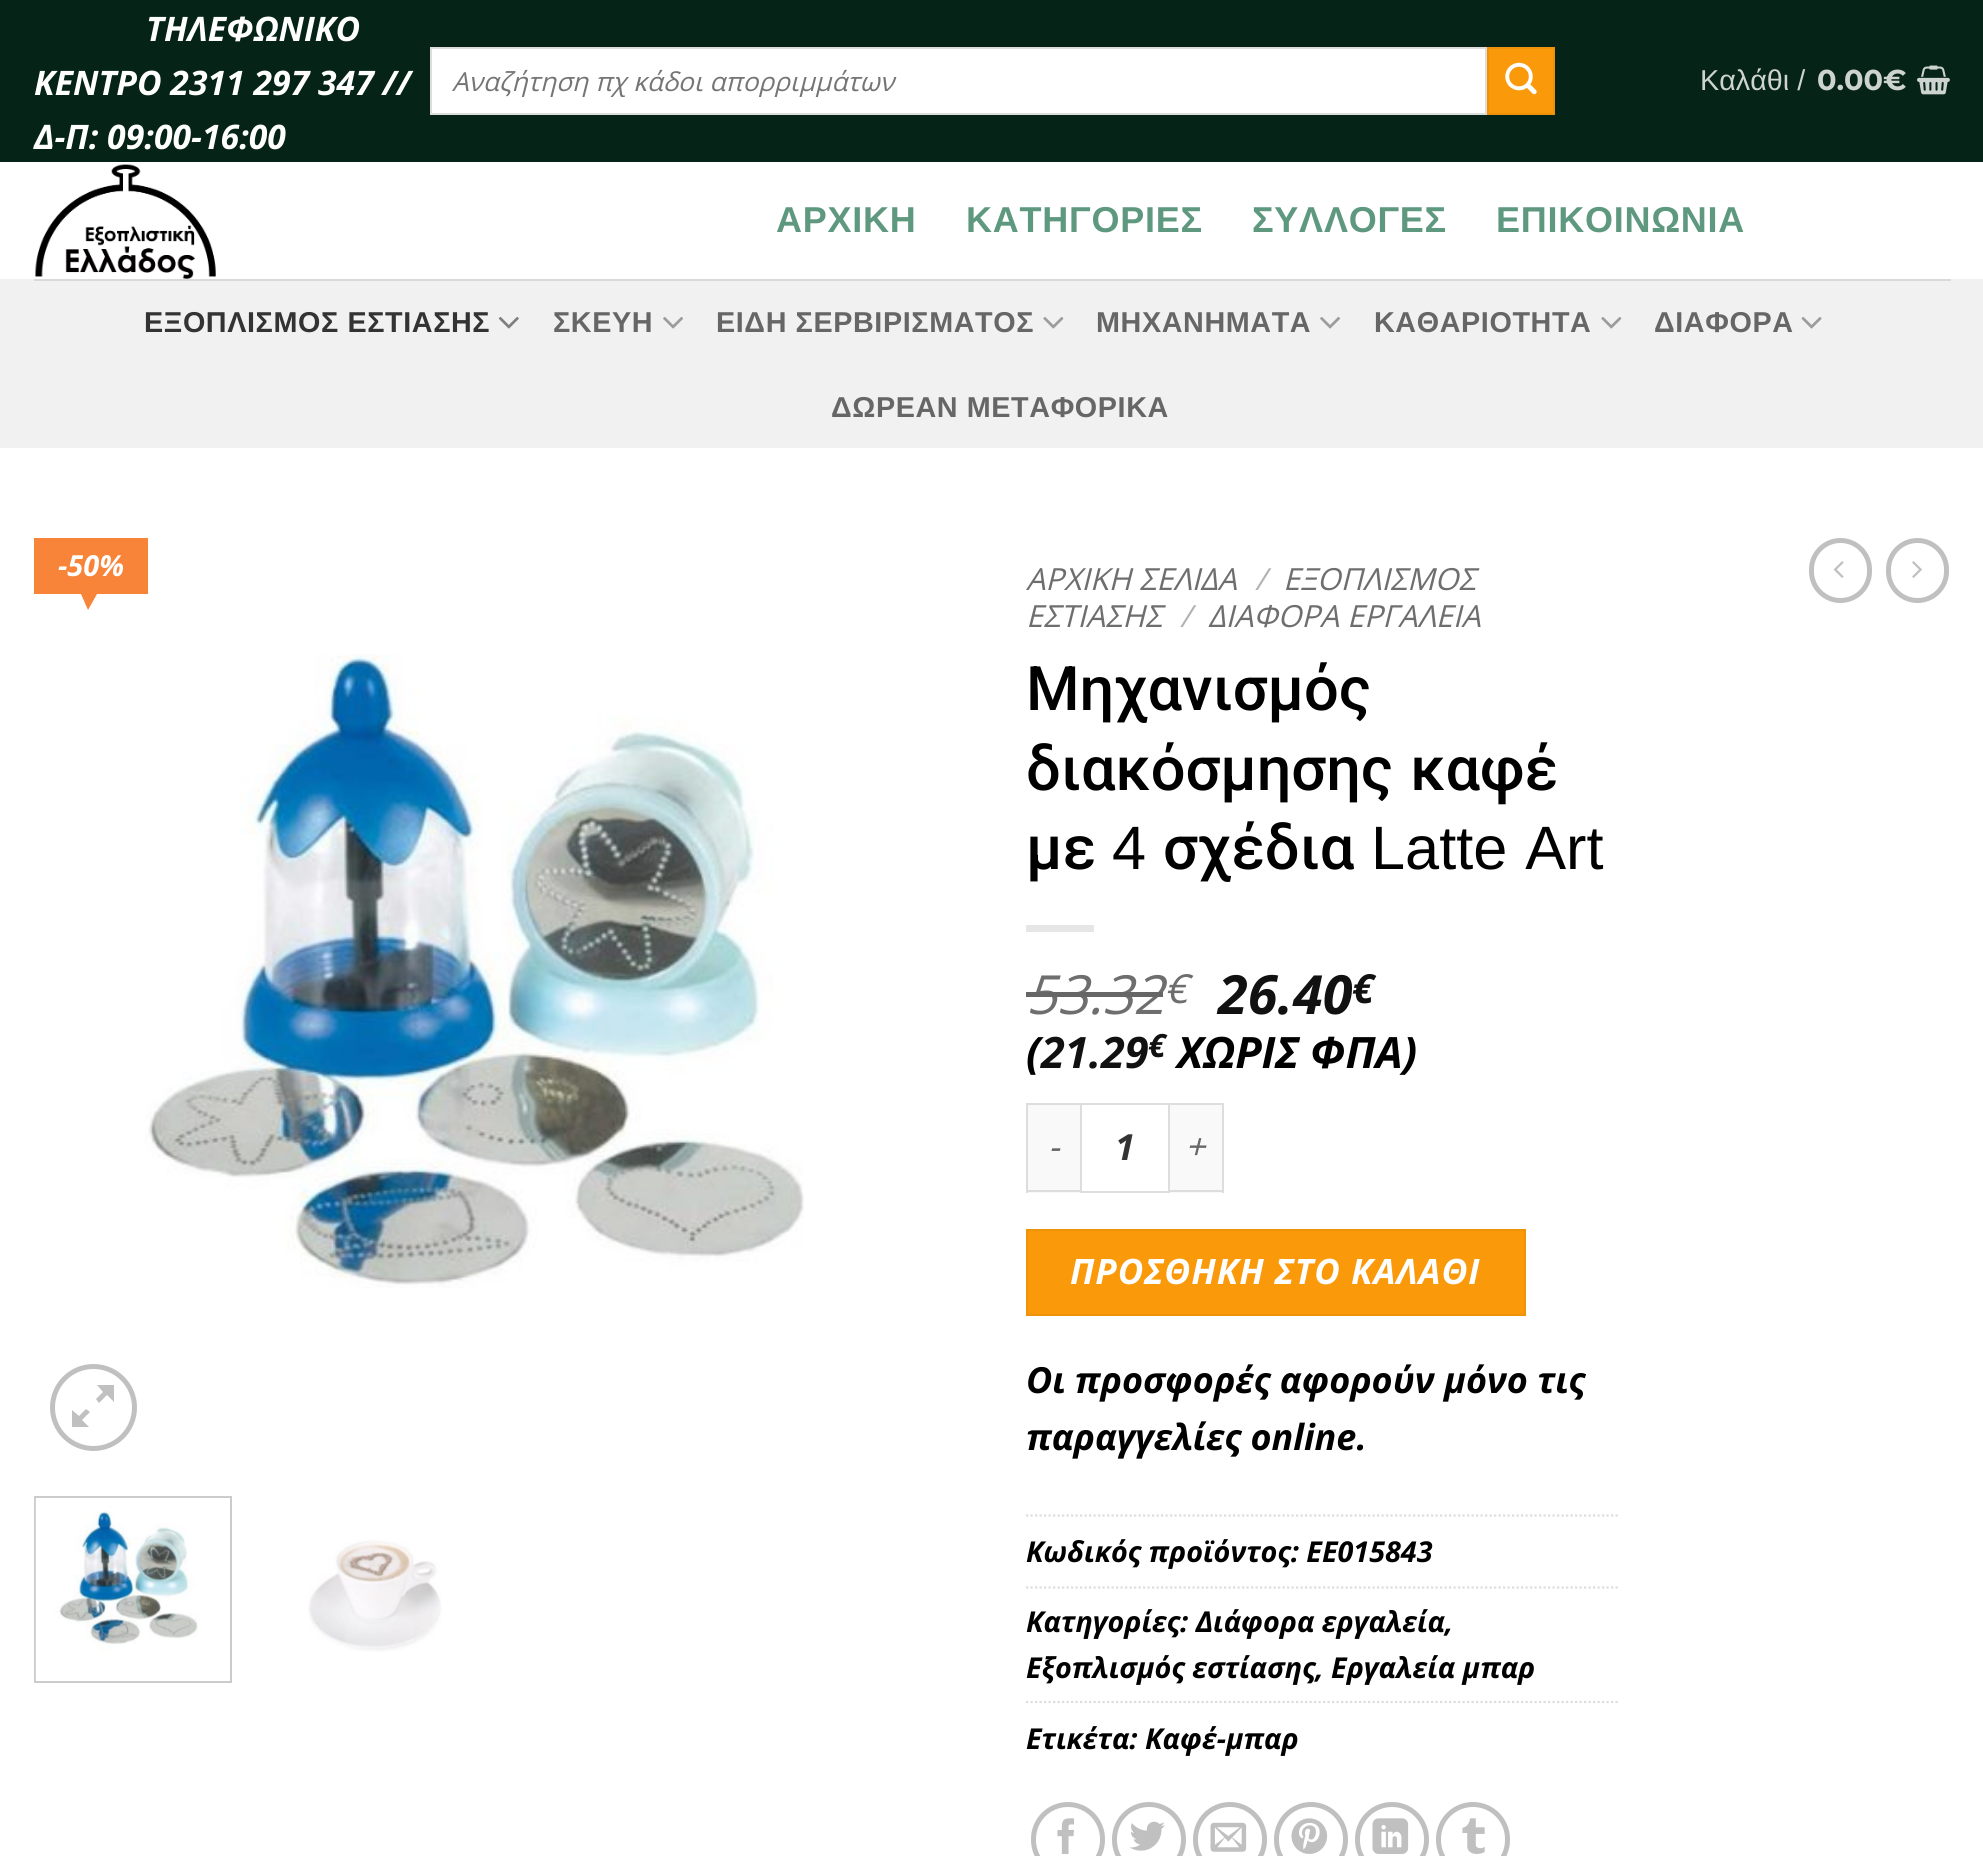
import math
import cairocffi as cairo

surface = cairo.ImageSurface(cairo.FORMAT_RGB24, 1983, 1856)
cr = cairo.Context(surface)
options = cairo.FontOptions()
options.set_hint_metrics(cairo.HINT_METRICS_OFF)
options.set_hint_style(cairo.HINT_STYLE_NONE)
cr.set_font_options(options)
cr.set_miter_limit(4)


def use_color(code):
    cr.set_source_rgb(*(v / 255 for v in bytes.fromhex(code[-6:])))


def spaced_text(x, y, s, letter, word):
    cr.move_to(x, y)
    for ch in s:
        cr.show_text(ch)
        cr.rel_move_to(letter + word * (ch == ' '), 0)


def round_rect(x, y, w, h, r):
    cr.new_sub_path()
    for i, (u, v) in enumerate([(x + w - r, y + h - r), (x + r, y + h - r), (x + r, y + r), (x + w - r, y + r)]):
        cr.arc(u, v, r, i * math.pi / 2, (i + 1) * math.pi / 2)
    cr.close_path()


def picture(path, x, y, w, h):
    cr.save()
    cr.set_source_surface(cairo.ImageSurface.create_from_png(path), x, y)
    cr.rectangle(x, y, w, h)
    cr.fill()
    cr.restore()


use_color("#ffffff")
cr.paint()
use_color("#052317")
cr.rectangle(0, 0, 1983, 162)
cr.fill()
cr.select_font_face("Open Sans", cairo.FONT_SLANT_ITALIC, cairo.FONT_WEIGHT_BOLD)
cr.set_font_size(33.75)
use_color("#ffffff")
cr.move_to(146, 41)
cr.show_text("ΤΗΛΕΦΩΝΙΚΟ")
cr.move_to(34, 95)
cr.show_text("ΚΕΝΤΡΟ 2311 297 347 //")
cr.move_to(34, 149)
cr.show_text("Δ-Π: 09:00-16:00")
cr.rectangle(431, 48, 1055, 66)
cr.fill_preserve()
use_color("#dddddd")
cr.stroke()
cr.save()
cr.rectangle(452, 63, 1004, 34)
cr.clip()
cr.select_font_face("Open Sans", cairo.FONT_SLANT_ITALIC)
cr.set_font_size(26.2)
use_color("#757575")
cr.move_to(452, 91)
cr.show_text("Αναζήτηση πχ κάδοι απορριμμάτων")
cr.restore()
use_color("#fa9a0a")
cr.rectangle(1488, 48, 66, 66)
cr.fill_preserve()
use_color("#ee920a")
cr.stroke()
picture("img1.png", 1505, 62, 32, 33)
cr.select_font_face("Liberation Sans")
cr.set_font_size(28.75)
use_color("#cdd3d1")
cr.move_to(1700, 90)
cr.show_text("Καλάθι /")
cr.select_font_face("Montserrat Thin")
cr.move_to(1817, 90)
cr.show_text("0.00€")
picture("img2.png", 1917, 65, 33, 30)
picture("img3.png", 35, 164, 181, 115)
cr.select_font_face("Liberation Sans", cairo.FONT_SLANT_NORMAL, cairo.FONT_WEIGHT_BOLD)
cr.set_font_size(36)
use_color("#5e987f")
spaced_text(776, 232, "ΑΡΧΙΚΗ", 0.75, 0)
spaced_text(966, 232, "ΚΑΤΗΓΟΡΙΕΣ", 0.75, 0)
spaced_text(1252, 232, "ΣΥΛΛΟΓΕΣ", 0.75, 0)
spaced_text(1496, 232, "ΕΠΙΚΟΙΝΩΝΙΑ", 0.75, 0)
use_color("#f1f1f1")
cr.rectangle(0, 279, 1983, 169)
cr.fill()
use_color("#d9d9d9")
cr.rectangle(34, 279, 1917, 2)
cr.fill()
cr.set_font_size(28.75)
use_color("#333333")
spaced_text(144, 332, "ΕΞΟΠΛΙΣΜΟΣ ΕΣΤΙΑΣΗΣ", 0.6, 0)
picture("img4.png", 498, 316, 21, 13)
use_color("#666666")
spaced_text(553, 332, "ΣΚΕΥΗ", 0.6, 0)
picture("img5.png", 663, 317, 20, 12)
spaced_text(716, 332, "ΕΙΔΗ ΣΕΡΒΙΡΙΣΜΑΤΟΣ", 0.6, 0)
picture("img6.png", 1043, 317, 21, 12)
spaced_text(1096, 332, "ΜΗΧΑΝΗΜΑΤΑ", 0.6, 0)
picture("img5.png", 1320, 317, 20, 12)
spaced_text(1374, 332, "ΚΑΘΑΡΙΟΤΗΤΑ", 0.6, 0)
picture("img6.png", 1601, 317, 21, 12)
spaced_text(1654, 332, "ΔΙΑΦΟΡΑ", 0.6, 0)
picture("img7.png", 1801, 317, 21, 12)
spaced_text(831, 417, "ΔΩΡΕΑΝ ΜΕΤΑΦΟΡΙΚΑ", 0.6, 0)
use_color("#f78438")
cr.new_path()
cr.move_to(148, 538)
cr.line_to(148, 594)
cr.line_to(97, 594)
cr.line_to(88, 610)
cr.line_to(81, 594)
cr.line_to(34, 594)
cr.line_to(34, 538)
cr.close_path()
cr.fill()
cr.select_font_face("Open Sans", cairo.FONT_SLANT_ITALIC, cairo.FONT_WEIGHT_BOLD)
cr.set_font_size(29)
use_color("#ffffff")
cr.move_to(58, 576)
cr.show_text("-50%")
picture("img8.png", 145, 654, 659, 634)
cr.arc(93.5, 1407.5, 41, 0, 2 * math.pi)
use_color("#c0c0c0")
cr.set_line_width(5)
cr.stroke()
cr.new_path()
cr.move_to(114, 1385)
cr.line_to(114, 1402)
cr.line_to(107, 1395)
cr.line_to(99, 1403)
cr.line_to(96, 1399)
cr.line_to(103, 1392)
cr.line_to(97, 1385)
cr.close_path()
cr.move_to(90, 1412)
cr.line_to(82, 1420)
cr.line_to(89, 1427)
cr.line_to(72, 1427)
cr.line_to(72, 1410)
cr.line_to(79, 1416)
cr.line_to(86, 1409)
cr.close_path()
cr.fill()
cr.rectangle(35, 1497, 196, 185)
use_color("#cccccc")
cr.set_line_width(2)
cr.stroke()
picture("img9.png", 35, 1499, 163, 181)
picture("img10.png", 308, 1539, 134, 113)
cr.select_font_face("Open Sans", cairo.FONT_SLANT_ITALIC)
cr.set_font_size(30.5)
use_color("#6e6e6e")
cr.move_to(1026, 590)
cr.show_text("ΑΡΧΙΚΗ ΣΕΛΙΔΑ")
use_color("#b2b2b2")
cr.move_to(1255, 590)
cr.show_text("/")
use_color("#6e6e6e")
cr.move_to(1283, 590)
cr.show_text("ΕΞΟΠΛΙΣΜΟΣ")
cr.move_to(1026, 627)
cr.show_text("ΕΣΤΙΑΣΗΣ")
use_color("#b2b2b2")
cr.move_to(1180, 627)
cr.show_text("/")
use_color("#6e6e6e")
cr.move_to(1208, 627)
cr.show_text("ΔΙΑΦΟΡΑ ΕΡΓΑΛΕΙΑ")
cr.select_font_face("Roboto Medium")
cr.set_font_size(61.25)
use_color("#000000")
cr.move_to(1026, 710)
cr.show_text("Μηχανισμός")
spaced_text(1026, 790, "διακόσμησης καφέ", 0, 2)
cr.move_to(1026, 869)
cr.show_text("με")
cr.select_font_face("Liberation Sans")
cr.move_to(1112, 869)
cr.show_text("4")
cr.select_font_face("Roboto Medium")
cr.move_to(1163, 869)
cr.show_text("σχέδια")
cr.select_font_face("Liberation Sans")
spaced_text(1371, 869, "Latte Art", 0, 1)
use_color("#e6e6e6")
cr.rectangle(1026, 925, 68, 7)
cr.fill()
cr.select_font_face("Open Sans", cairo.FONT_SLANT_ITALIC)
cr.set_font_size(54)
use_color("#6e6e6e")
cr.move_to(1026, 1014)
cr.show_text("53.32")
use_color("#666666")
cr.rectangle(1026, 992, 137, 5)
cr.fill()
cr.set_font_size(40)
use_color("#6e6e6e")
cr.move_to(1164, 1003)
cr.show_text("€")
cr.select_font_face("Open Sans", cairo.FONT_SLANT_ITALIC, cairo.FONT_WEIGHT_BOLD)
cr.set_font_size(54)
use_color("#111111")
cr.move_to(1218, 1014)
cr.show_text("26.40")
cr.set_font_size(40)
cr.move_to(1352, 1003)
cr.show_text("€")
cr.set_font_size(43.25)
use_color("#000000")
cr.move_to(1026, 1068)
cr.show_text("(")
use_color("#111111")
cr.move_to(1041, 1068)
cr.show_text("21.29")
cr.set_font_size(32)
cr.move_to(1148, 1057)
cr.show_text("€")
cr.set_font_size(43.25)
use_color("#000000")
cr.move_to(1177, 1068)
cr.show_text("ΧΩΡΙΣ ΦΠΑ)")
use_color("#f9f9f9")
cr.rectangle(1028, 1105, 52, 88)
cr.fill()
use_color("#dddddd")
cr.rectangle(1026, 1103, 54, 2)
cr.fill()
cr.rectangle(1026, 1190, 54, 2)
cr.fill()
cr.rectangle(1026, 1103, 2, 90)
cr.fill()
cr.select_font_face("Open Sans", cairo.FONT_SLANT_ITALIC)
cr.set_font_size(35)
use_color("#666666")
spaced_text(1048, 1159, "-", 1, 0)
cr.rectangle(1081, 1104, 88, 88)
use_color("#dddddd")
cr.stroke()
cr.select_font_face("Open Sans", cairo.FONT_SLANT_ITALIC, cairo.FONT_WEIGHT_BOLD)
cr.set_font_size(36)
use_color("#333333")
cr.move_to(1115, 1160)
cr.show_text("1")
use_color("#f9f9f9")
cr.rectangle(1170, 1105, 52, 88)
cr.fill()
use_color("#dddddd")
cr.rectangle(1170, 1103, 54, 2)
cr.fill()
cr.rectangle(1222, 1103, 2, 90)
cr.fill()
cr.rectangle(1170, 1190, 54, 2)
cr.fill()
cr.select_font_face("Open Sans", cairo.FONT_SLANT_ITALIC)
cr.set_font_size(35)
use_color("#666666")
spaced_text(1185, 1159, "+", 1, 0)
use_color("#fa9a0a")
cr.rectangle(1027, 1230, 498, 85)
cr.fill_preserve()
use_color("#ee920a")
cr.stroke()
cr.select_font_face("Open Sans", cairo.FONT_SLANT_ITALIC, cairo.FONT_WEIGHT_BOLD)
use_color("#ffffff")
spaced_text(1070, 1284, "ΠΡΟΣΘΗΚΗ ΣΤΟ ΚΑΛΑΘΙ", 1, 0)
cr.set_font_size(36)
use_color("#000000")
cr.move_to(1026, 1393)
cr.show_text("Οι προσφορές αφορούν μόνο τις")
cr.move_to(1026, 1450)
cr.show_text("παραγγελίες online.")
cr.new_path()
cr.move_to(1026, 1515.5)
cr.line_to(1620, 1515.5)
use_color("#dddddd")
cr.set_line_width(2.2)
cr.set_dash([2.25, 2.25])
cr.stroke()
cr.set_font_size(28.75)
use_color("#000000")
cr.move_to(1026, 1562)
cr.show_text("Κωδικός προϊόντος: EE015843")
cr.new_path()
cr.move_to(1026, 1587.5)
cr.line_to(1620, 1587.5)
use_color("#dddddd")
cr.stroke()
use_color("#000000")
cr.move_to(1026, 1632)
cr.show_text("Κατηγορίες: Διάφορα εργαλεία,")
cr.move_to(1026, 1678)
cr.show_text("Εξοπλισμός εστίασης, Εργαλεία μπαρ")
cr.new_path()
cr.move_to(1026, 1702)
cr.line_to(1620, 1702)
use_color("#dddddd")
cr.stroke()
use_color("#000000")
cr.move_to(1026, 1749)
cr.show_text("Ετικέτα: Καφέ-μπαρ")
round_rect(1033.5, 1804.5, 69, 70, 34.5)
use_color("#c0c0c0")
cr.set_line_width(5)
cr.set_dash([])
cr.stroke()
picture("img11.png", 1057, 1818, 17, 36)
round_rect(1114.5, 1804.5, 69, 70, 34.5)
cr.stroke()
picture("img12.png", 1130, 1821, 35, 30)
round_rect(1195.5, 1804.5, 69, 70, 34.5)
cr.stroke()
picture("img13.png", 1210, 1822, 37, 30)
round_rect(1276.5, 1804.5, 69, 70, 34.5)
cr.stroke()
picture("img14.png", 1291, 1818, 37, 36)
round_rect(1357.5, 1804.5, 69, 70, 34.5)
cr.stroke()
picture("img15.png", 1372, 1818, 37, 36)
round_rect(1438.5, 1804.5, 69, 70, 34.5)
cr.stroke()
picture("img16.png", 1462, 1818, 23, 36)
round_rect(1811.5, 540.5, 58, 60, 29)
cr.stroke()
picture("img17.png", 1833, 561, 11, 17)
round_rect(1888.5, 540.5, 58, 60, 29)
cr.stroke()
picture("img18.png", 1912, 561, 10, 17)
surface.write_to_png("result.png")
